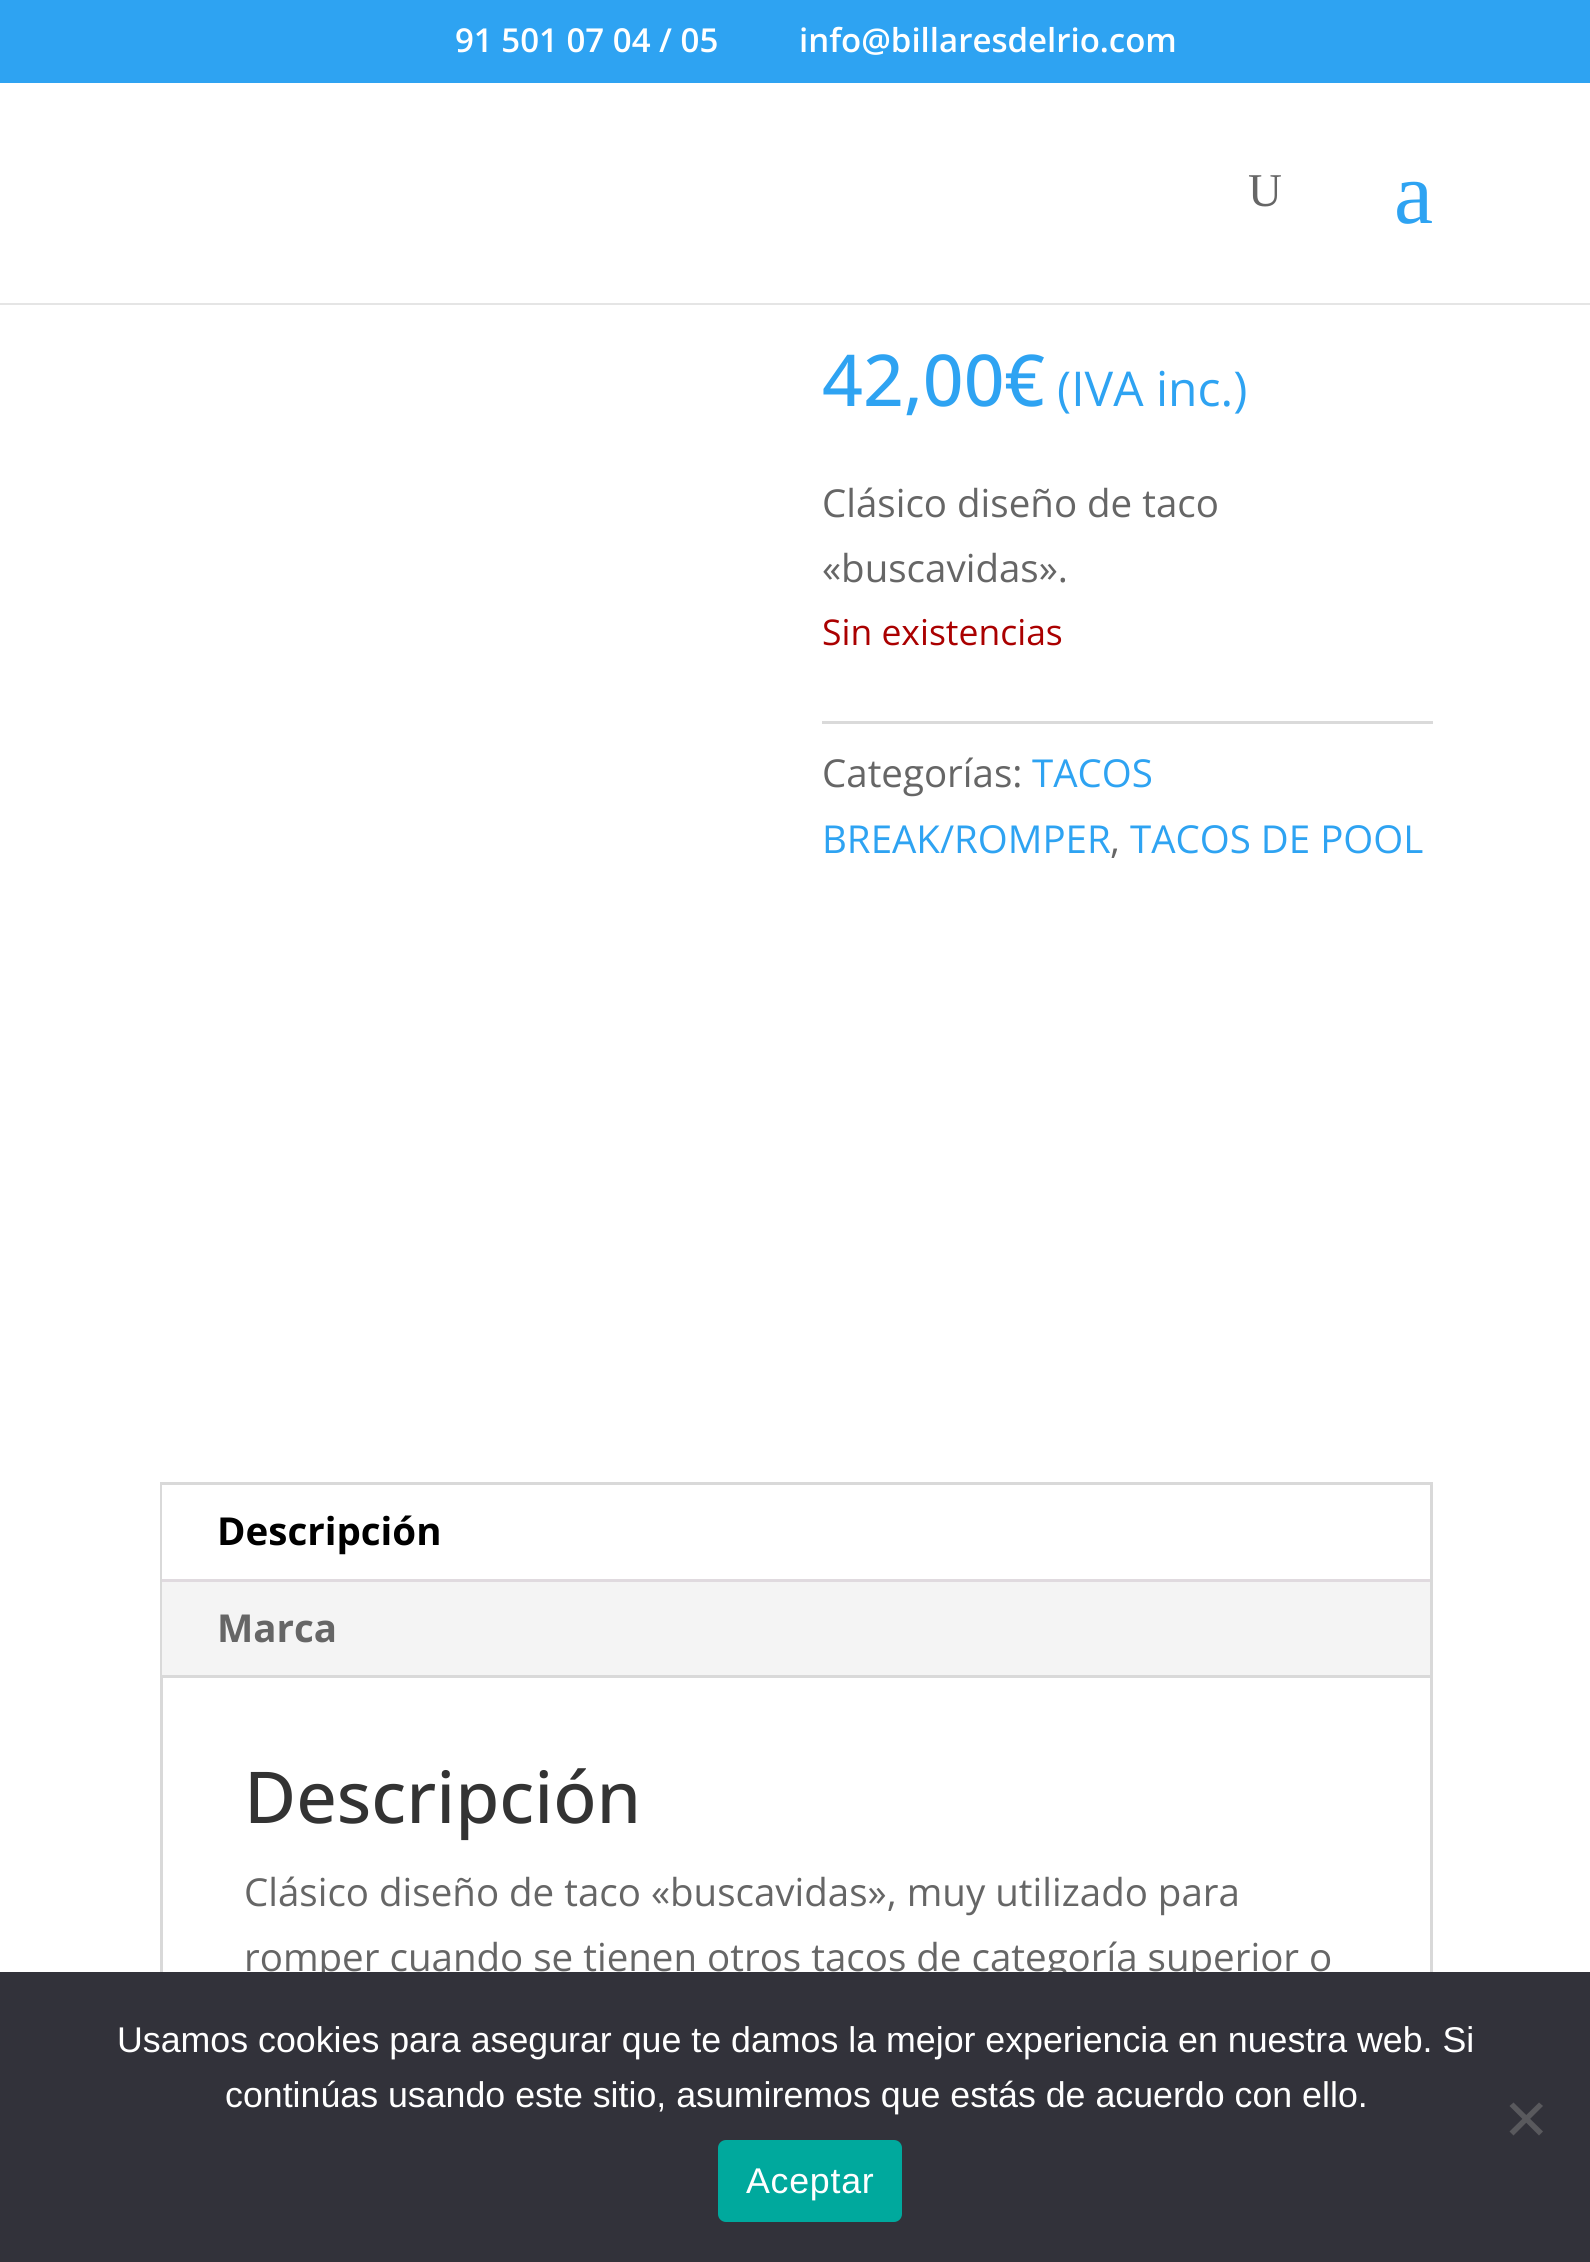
import math
import cairocffi as cairo

surface = cairo.ImageSurface(cairo.FORMAT_RGB24, 1590, 2262)
cr = cairo.Context(surface)
options = cairo.FontOptions()
options.set_hint_metrics(cairo.HINT_METRICS_OFF)
options.set_hint_style(cairo.HINT_STYLE_NONE)
cr.set_font_options(options)
cr.set_miter_limit(4)


def use_color(code):
    cr.set_source_rgb(*(v / 255 for v in bytes.fromhex(code[-6:])))


def spaced_text(x, y, s, letter, word):
    cr.move_to(x, y)
    for ch in s:
        cr.show_text(ch)
        cr.rel_move_to(letter + word * (ch == ' '), 0)


def round_rect(x, y, w, h, r):
    cr.new_sub_path()
    for i, (u, v) in enumerate([(x + w - r, y + h - r), (x + r, y + h - r), (x + r, y + r), (x + w - r, y + r)]):
        cr.arc(u, v, r, i * math.pi / 2, (i + 1) * math.pi / 2)
    cr.close_path()


use_color("#ffffff")
cr.paint()
use_color("#2ea3f2")
cr.rectangle(0, 0, 1590, 83)
cr.fill()
cr.select_font_face("Open Sans SemiBold")
cr.set_font_size(33)
use_color("#ffffff")
cr.move_to(455, 52)
cr.show_text("91 501 07 04 / 05")
cr.move_to(799, 52)
cr.show_text("info@billaresdelrio.com")
use_color("#e5e5e5")
cr.rectangle(0, 303, 1590, 2)
cr.fill()
cr.select_font_face("Liberation Serif")
cr.set_font_size(47)
use_color("#666666")
cr.move_to(1248, 206)
cr.show_text("U")
cr.set_font_size(88)
use_color("#2ea3f2")
cr.move_to(1394, 223)
cr.show_text("a")
cr.select_font_face("Open Sans Medium")
cr.set_font_size(71.5)
cr.move_to(822, 406)
cr.show_text("42,00")
cr.move_to(1004, 406)
cr.show_text("€")
cr.select_font_face("Open Sans")
cr.set_font_size(48)
cr.move_to(1057, 406)
cr.show_text("(IVA inc.)")
cr.set_font_size(38.5)
use_color("#666666")
cr.move_to(822, 517)
cr.show_text("Clásico diseño de taco")
cr.move_to(822, 582)
cr.show_text("«buscavidas».")
cr.set_font_size(35.5)
use_color("#aa0000")
cr.move_to(822, 645)
cr.show_text("Sin existencias")
use_color("#dadada")
cr.rectangle(822, 721, 611, 3)
cr.fill()
cr.set_font_size(38.5)
use_color("#666666")
cr.move_to(822, 787)
cr.show_text("Categorías:")
use_color("#2ea3f2")
cr.move_to(1032, 787)
cr.show_text("TACOS")
cr.move_to(822, 853)
cr.show_text("BREAK/ROMPER")
use_color("#666666")
cr.move_to(1110, 853)
cr.show_text(",")
use_color("#2ea3f2")
cr.move_to(1130, 853)
cr.show_text("TACOS DE POOL")
cr.rectangle(161.5, 1483.5, 1270, 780)
use_color("#d9d9d9")
cr.set_line_width(3)
cr.stroke()
use_color("#f4f4f4")
cr.rectangle(162, 1582, 1268, 93)
cr.fill()
use_color("#ffffff")
cr.rectangle(162, 1485, 1, 94)
cr.fill()
use_color("#e0dadf")
cr.rectangle(162, 1579, 1268, 3)
cr.fill()
cr.select_font_face("Open Sans", cairo.FONT_SLANT_NORMAL, cairo.FONT_WEIGHT_BOLD)
use_color("#000000")
cr.move_to(217, 1545)
cr.show_text("Descripción")
use_color("#666666")
cr.move_to(217, 1642)
cr.show_text("Marca")
use_color("#d9d9d9")
cr.rectangle(162, 1675, 1268, 3)
cr.fill()
cr.select_font_face("Open Sans Medium")
cr.set_font_size(71.5)
use_color("#333333")
cr.move_to(244, 1823)
cr.show_text("Descripción")
cr.select_font_face("Open Sans")
cr.set_font_size(38.5)
use_color("#666666")
cr.move_to(244, 1906)
cr.show_text("Clásico diseño de taco «buscavidas», muy utilizado para")
cr.move_to(244, 1971)
cr.show_text("romper cuando se tienen otros tacos de categoría superior o")
use_color("#32323a")
cr.rectangle(0, 1972, 1590, 290)
cr.fill()
cr.select_font_face("Liberation Sans")
cr.set_font_size(35.75)
use_color("#ffffff")
cr.move_to(117, 2052)
cr.show_text("Usamos cookies para asegurar que te damos la mejor experiencia en nuestra web. Si")
cr.move_to(225, 2107)
cr.show_text("continúas usando este sitio, asumiremos que estás de acuerdo con ello.")
use_color("#59595d")
cr.new_path()
cr.move_to(1539, 2102.5)
cr.line_to(1543, 2106)
cr.line_to(1513.5, 2135.5)
cr.line_to(1509.5, 2131.5)
cr.close_path()
cr.fill()
cr.new_path()
cr.move_to(1509.5, 2106)
cr.line_to(1513.5, 2102.5)
cr.line_to(1543, 2131.5)
cr.line_to(1539, 2135.5)
cr.close_path()
cr.fill()
use_color("#00a99d")
round_rect(718, 2140, 184, 82, 8)
cr.fill()
use_color("#ffffff")
spaced_text(746, 2193, "Aceptar", 0.75, 0)
surface.write_to_png("result.png")
